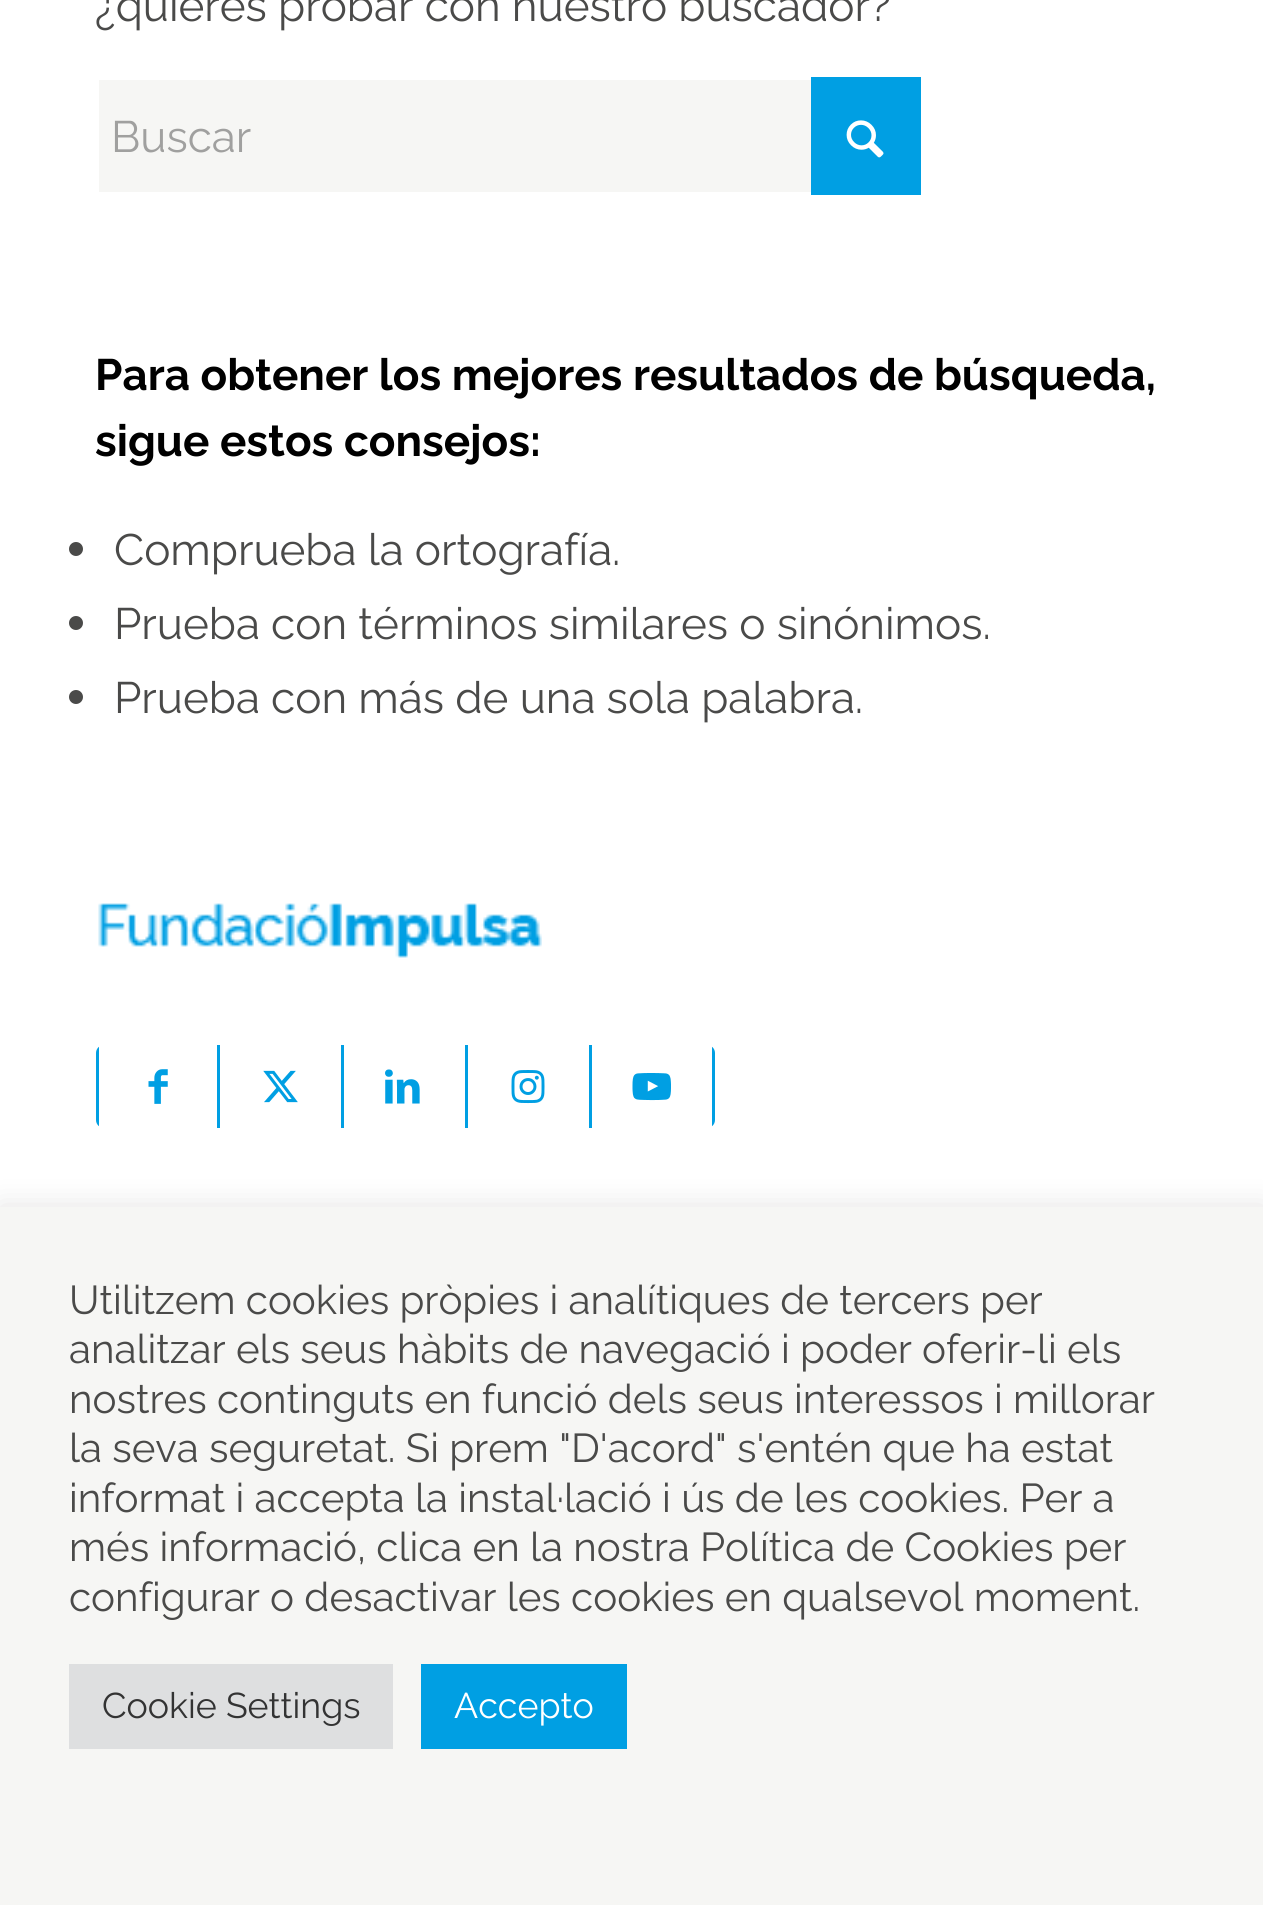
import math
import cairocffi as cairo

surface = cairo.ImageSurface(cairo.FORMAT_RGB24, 1263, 1905)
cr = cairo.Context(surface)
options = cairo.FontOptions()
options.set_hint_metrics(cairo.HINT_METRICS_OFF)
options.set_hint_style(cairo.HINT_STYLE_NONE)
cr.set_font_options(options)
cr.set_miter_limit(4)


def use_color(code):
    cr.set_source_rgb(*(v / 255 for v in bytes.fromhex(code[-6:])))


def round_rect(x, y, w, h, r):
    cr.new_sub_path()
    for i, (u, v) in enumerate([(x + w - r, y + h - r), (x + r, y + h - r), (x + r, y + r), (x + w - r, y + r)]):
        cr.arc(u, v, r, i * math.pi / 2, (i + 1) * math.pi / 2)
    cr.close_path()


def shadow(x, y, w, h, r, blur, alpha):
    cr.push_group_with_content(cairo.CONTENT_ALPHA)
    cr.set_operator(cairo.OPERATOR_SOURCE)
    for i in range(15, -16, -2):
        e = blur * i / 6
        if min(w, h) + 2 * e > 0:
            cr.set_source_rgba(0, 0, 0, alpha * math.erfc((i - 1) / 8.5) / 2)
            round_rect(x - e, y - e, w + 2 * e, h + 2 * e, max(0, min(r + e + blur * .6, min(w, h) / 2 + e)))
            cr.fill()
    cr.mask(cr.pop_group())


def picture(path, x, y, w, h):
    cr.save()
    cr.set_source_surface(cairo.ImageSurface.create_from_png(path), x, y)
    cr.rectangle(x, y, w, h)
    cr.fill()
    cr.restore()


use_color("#ffffff")
cr.paint()
cr.select_font_face("Raleway")
cr.set_font_size(44)
use_color("#4a4a49")
cr.move_to(95, 21)
cr.show_text("¿quieres probar con nuestro buscador?")
use_color("#f6f6f4")
cr.rectangle(99, 80, 712, 112)
cr.fill()
use_color("#a0a09f")
cr.move_to(111, 152)
cr.show_text("Buscar")
use_color("#009fe3")
cr.rectangle(811, 77, 110, 118)
cr.fill()
picture("img1.png", 846, 120, 38, 38)
cr.select_font_face("Raleway", cairo.FONT_SLANT_NORMAL, cairo.FONT_WEIGHT_BOLD)
use_color("#000000")
cr.move_to(95, 390)
cr.show_text("Para obtener los mejores resultados de búsqueda,")
cr.move_to(95, 456)
cr.show_text("sigue estos consejos:")
use_color("#4a4a49")
cr.new_path()
cr.arc(76, 549, 7, 0, 2 * math.pi)
cr.fill()
cr.select_font_face("Raleway")
cr.move_to(114, 565)
cr.show_text("Comprueba la ortografía.")
cr.new_path()
cr.arc(76, 623, 7, 0, 2 * math.pi)
cr.fill()
cr.move_to(114, 639)
cr.show_text("Prueba con términos similares o sinónimos.")
cr.new_path()
cr.arc(76, 697, 7, 0, 2 * math.pi)
cr.fill()
cr.move_to(114, 713)
cr.show_text("Prueba con más de una sola palabra.")
picture("img2.png", 98, 903, 444, 55)
use_color("#009fe3")
cr.rectangle(217, 1045, 3, 83)
cr.fill()
cr.save()
round_rect(96, 1045, 619, 83, 8)
cr.clip()
cr.rectangle(96, 1045, 3, 83)
cr.fill()
cr.restore()
picture("img3.png", 148, 1069, 20, 35)
cr.rectangle(341, 1045, 3, 83)
cr.fill()
picture("img4.png", 263, 1070, 35, 33)
cr.rectangle(465, 1045, 3, 83)
cr.fill()
picture("img5.png", 385, 1069, 35, 35)
cr.rectangle(589, 1045, 3, 83)
cr.fill()
picture("img6.png", 511, 1070, 34, 34)
cr.save()
round_rect(96, 1045, 619, 83, 8)
cr.clip()
cr.rectangle(712, 1045, 3, 83)
cr.fill()
cr.restore()
picture("img7.png", 632, 1073, 39, 28)
use_color("#acabab")
shadow(0, 1205, 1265, 698, 0, 14, 0.3)
use_color("#f6f6f4")
cr.rectangle(0, 1207, 1263, 698)
cr.fill()
cr.set_font_size(40.3)
use_color("#4a4a49")
cr.move_to(69, 1314)
cr.show_text("Utilitzem cookies pròpies i analítiques de tercers per")
cr.move_to(69, 1363)
cr.show_text("analitzar els seus hàbits de navegació i poder oferir-li els")
cr.move_to(69, 1413)
cr.show_text("nostres continguts en funció dels seus interessos i millorar")
cr.move_to(69, 1462)
cr.show_text("la seva seguretat. Si prem \"D'acord\" s'entén que ha estat")
cr.move_to(69, 1512)
cr.show_text("informat i accepta la instal·lació i ús de les cookies. Per a")
cr.move_to(69, 1561)
cr.show_text("més informació, clica en la nostra Política de Cookies per")
cr.move_to(69, 1611)
cr.show_text("configurar o desactivar les cookies en qualsevol moment.")
use_color("#dedfe0")
cr.rectangle(69, 1664, 324, 85)
cr.fill()
cr.set_font_size(35.75)
use_color("#333333")
cr.move_to(102, 1718)
cr.show_text("Cookie Settings")
use_color("#009fe3")
cr.rectangle(421, 1664, 206, 85)
cr.fill()
use_color("#ffffff")
cr.move_to(454, 1718)
cr.show_text("Accepto")
surface.write_to_png("result.png")
